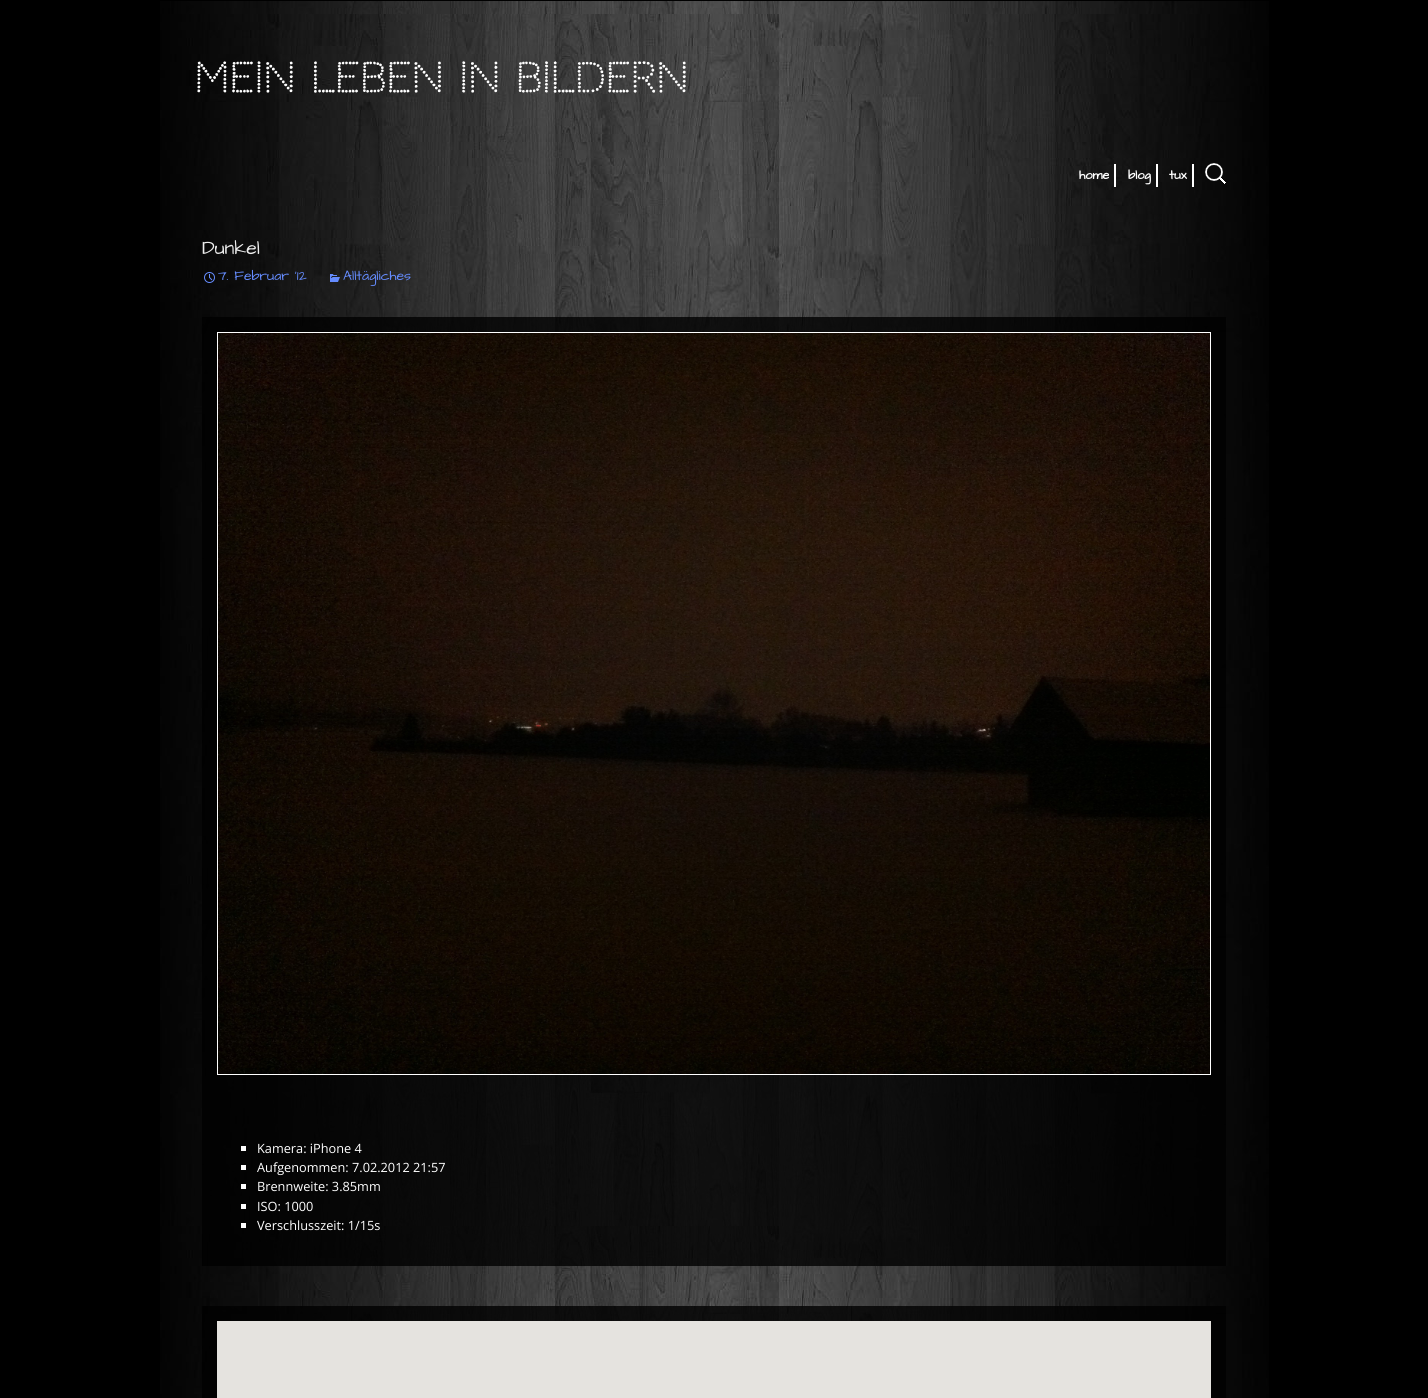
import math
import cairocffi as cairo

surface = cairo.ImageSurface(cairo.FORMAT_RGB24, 1428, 1398)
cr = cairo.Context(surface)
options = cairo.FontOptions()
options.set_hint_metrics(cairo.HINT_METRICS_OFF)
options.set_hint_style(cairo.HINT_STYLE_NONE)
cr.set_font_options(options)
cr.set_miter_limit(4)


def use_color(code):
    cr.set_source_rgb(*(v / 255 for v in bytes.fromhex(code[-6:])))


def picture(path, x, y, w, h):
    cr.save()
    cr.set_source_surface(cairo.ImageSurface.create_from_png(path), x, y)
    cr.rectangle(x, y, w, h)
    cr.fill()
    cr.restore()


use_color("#000000")
cr.paint()
picture("img1.png", 160, 1, 1109, 1397)
cr.select_font_face("Codystar", cairo.FONT_SLANT_NORMAL, cairo.FONT_WEIGHT_BOLD)
cr.set_font_size(40)
use_color("#ffffff")
cr.move_to(194, 92)
cr.show_text("Mein Leben in Bildern")
cr.rectangle(1114, 164, 2, 23)
cr.fill()
cr.select_font_face("Architects Daughter", cairo.FONT_SLANT_NORMAL, cairo.FONT_WEIGHT_BOLD)
cr.set_font_size(12.75)
cr.move_to(1079, 179)
cr.show_text("home")
cr.rectangle(1156, 164, 2, 23)
cr.fill()
cr.move_to(1128, 179)
cr.show_text("blog")
cr.rectangle(1192, 164, 2, 23)
cr.fill()
cr.move_to(1169, 179)
cr.show_text("tux")
picture("img2.png", 1205, 163, 21, 21)
cr.select_font_face("Architects Daughter")
cr.set_font_size(19.5)
use_color("#eeeeee")
cr.move_to(202, 254)
cr.show_text("Dunkel")
picture("img3.png", 204, 272, 11, 11)
cr.set_font_size(14)
use_color("#658cff")
cr.move_to(218, 280)
cr.show_text("7. Februar '12")
picture("img4.png", 330, 274, 10, 8)
cr.move_to(343, 280)
cr.show_text("Alltägliches")
cr.set_source_rgba(0, 0, 0, 0.8)
cr.rectangle(202, 317, 1024, 949)
cr.fill()
cr.rectangle(217.5, 332.5, 993, 742)
use_color("#ffffff")
cr.set_line_width(1)
cr.stroke()
picture("img5.png", 218, 333, 992, 741)
cr.rectangle(241, 1146, 5, 5)
cr.fill()
cr.select_font_face("Open Sans")
cr.set_font_size(12.75)
cr.move_to(257, 1153)
cr.show_text("Kamera: iPhone 4")
cr.rectangle(241, 1165, 5, 5)
cr.fill()
cr.move_to(257, 1172)
cr.show_text("Aufgenommen: 7.02.2012 21:57")
cr.rectangle(241, 1184, 5, 5)
cr.fill()
cr.move_to(257, 1191)
cr.show_text("Brennweite: 3.85mm")
cr.rectangle(241, 1204, 5, 5)
cr.fill()
cr.move_to(257, 1211)
cr.show_text("ISO: 1000")
cr.rectangle(241, 1223, 5, 5)
cr.fill()
cr.move_to(257, 1230)
cr.show_text("Verschlusszeit: 1/15s")
cr.set_source_rgba(0, 0, 0, 0.8)
cr.rectangle(202, 1306, 1024, 92)
cr.fill()
use_color("#e5e3df")
cr.rectangle(217, 1321, 994, 77)
cr.fill()
surface.write_to_png("result.png")
